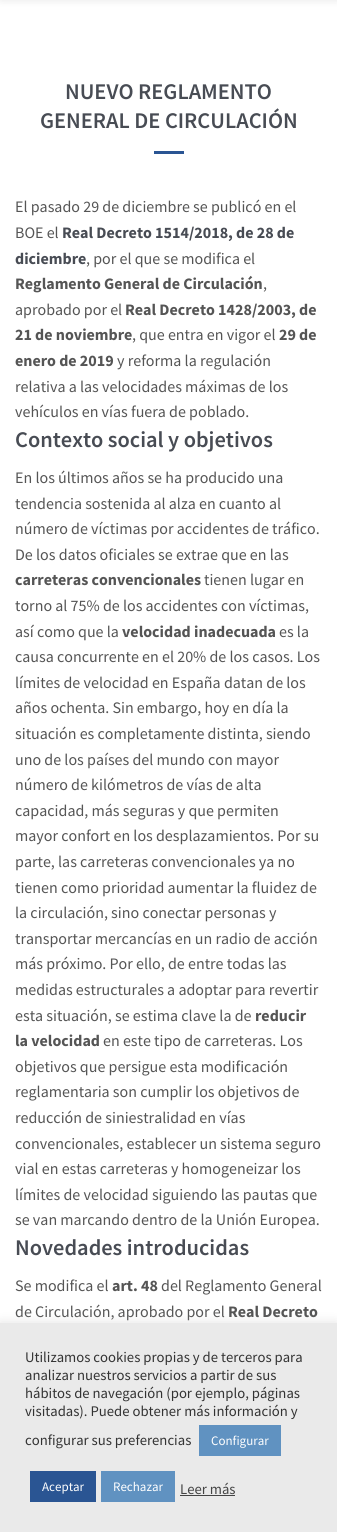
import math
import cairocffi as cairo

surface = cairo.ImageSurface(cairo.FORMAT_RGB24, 337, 1532)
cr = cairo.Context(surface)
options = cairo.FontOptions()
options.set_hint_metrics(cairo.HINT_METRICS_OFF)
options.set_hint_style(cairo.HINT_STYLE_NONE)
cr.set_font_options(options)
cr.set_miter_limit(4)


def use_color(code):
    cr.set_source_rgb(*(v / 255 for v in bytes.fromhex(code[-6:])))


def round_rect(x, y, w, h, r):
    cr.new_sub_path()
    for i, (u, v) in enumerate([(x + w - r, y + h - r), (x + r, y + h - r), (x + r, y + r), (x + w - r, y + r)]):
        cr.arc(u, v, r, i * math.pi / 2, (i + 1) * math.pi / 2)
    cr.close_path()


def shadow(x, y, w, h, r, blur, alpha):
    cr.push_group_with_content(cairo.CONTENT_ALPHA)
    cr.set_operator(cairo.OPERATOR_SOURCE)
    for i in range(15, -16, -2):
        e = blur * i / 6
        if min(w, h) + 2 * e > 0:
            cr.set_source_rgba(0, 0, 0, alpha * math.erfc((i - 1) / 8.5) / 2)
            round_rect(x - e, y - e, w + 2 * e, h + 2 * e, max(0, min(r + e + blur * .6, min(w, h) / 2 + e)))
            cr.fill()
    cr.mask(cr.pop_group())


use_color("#ffffff")
cr.paint()
use_color("#000000")
shadow(1, -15, 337, 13, 0, 5, 0.15)
cr.select_font_face("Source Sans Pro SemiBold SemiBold")
cr.set_font_size(22.4)
use_color("#484c54")
cr.move_to(65, 99)
cr.show_text("NUEVO REGLAMENTO")
cr.move_to(40, 128)
cr.show_text("GENERAL DE CIRCULACIÓN")
use_color("#2a5593")
cr.rectangle(154, 151, 30, 3)
cr.fill()
cr.select_font_face("Source Sans Pro")
cr.set_font_size(16)
use_color("#555555")
cr.move_to(15, 212)
cr.show_text("El pasado 29 de diciembre se publicó en el")
cr.move_to(15, 238)
cr.show_text("BOE el")
cr.select_font_face("Source Sans Pro", cairo.FONT_SLANT_NORMAL, cairo.FONT_WEIGHT_BOLD)
use_color("#484c54")
cr.move_to(62, 238)
cr.show_text("Real Decreto 1514/2018, de 28 de")
cr.move_to(15, 264)
cr.show_text("diciembre")
cr.select_font_face("Source Sans Pro")
use_color("#555555")
cr.move_to(86, 264)
cr.show_text(", por el que se modifica el")
cr.select_font_face("Source Sans Pro", cairo.FONT_SLANT_NORMAL, cairo.FONT_WEIGHT_BOLD)
cr.move_to(15, 289)
cr.show_text("Reglamento General de Circulación")
cr.select_font_face("Source Sans Pro")
cr.move_to(263, 289)
cr.show_text(",")
cr.move_to(15, 315)
cr.show_text("aprobado por el")
cr.select_font_face("Source Sans Pro", cairo.FONT_SLANT_NORMAL, cairo.FONT_WEIGHT_BOLD)
cr.move_to(125, 315)
cr.show_text("Real Decreto 1428/2003, de")
cr.move_to(15, 340)
cr.show_text("21 de noviembre")
cr.select_font_face("Source Sans Pro")
cr.move_to(132, 340)
cr.show_text(", que entra en vigor el")
cr.select_font_face("Source Sans Pro", cairo.FONT_SLANT_NORMAL, cairo.FONT_WEIGHT_BOLD)
cr.move_to(279, 340)
cr.show_text("29 de")
cr.move_to(15, 366)
cr.show_text("enero de 2019")
cr.select_font_face("Source Sans Pro")
cr.move_to(117, 366)
cr.show_text("y reforma la regulación")
cr.move_to(15, 392)
cr.show_text("relativa a las velocidades máximas de los")
cr.move_to(15, 417)
cr.show_text("vehículos en vías fuera de poblado.")
cr.select_font_face("Source Sans Pro SemiBold SemiBold")
cr.set_font_size(22.4)
use_color("#484c54")
cr.move_to(15, 447)
cr.show_text("Contexto social y objetivos")
cr.select_font_face("Source Sans Pro")
cr.set_font_size(16)
use_color("#555555")
cr.move_to(15, 483)
cr.show_text("En los últimos años se ha producido una")
cr.move_to(15, 509)
cr.show_text("tendencia sostenida al alza en cuanto al")
cr.move_to(15, 534)
cr.show_text("número de víctimas por accidentes de tráfico.")
cr.move_to(15, 560)
cr.show_text("De los datos oficiales se extrae que en las")
cr.select_font_face("Source Sans Pro", cairo.FONT_SLANT_NORMAL, cairo.FONT_WEIGHT_BOLD)
cr.move_to(15, 585)
cr.show_text("carreteras convencionales")
cr.select_font_face("Source Sans Pro")
cr.move_to(204, 585)
cr.show_text("tienen lugar en")
cr.move_to(15, 611)
cr.show_text("torno al 75% de los accidentes con víctimas,")
cr.move_to(15, 637)
cr.show_text("así como que la")
cr.select_font_face("Source Sans Pro", cairo.FONT_SLANT_NORMAL, cairo.FONT_WEIGHT_BOLD)
cr.move_to(122, 637)
cr.show_text("velocidad inadecuada")
cr.select_font_face("Source Sans Pro")
cr.move_to(279, 637)
cr.show_text("es la")
cr.move_to(15, 662)
cr.show_text("causa concurrente en el 20% de los casos. Los")
cr.move_to(15, 688)
cr.show_text("límites de velocidad en España datan de los")
cr.move_to(15, 713)
cr.show_text("años ochenta. Sin embargo, hoy en día la")
cr.move_to(15, 739)
cr.show_text("situación es completamente distinta, siendo")
cr.move_to(15, 765)
cr.show_text("uno de los países del mundo con mayor")
cr.move_to(15, 790)
cr.show_text("número de kilómetros de vías de alta")
cr.move_to(15, 816)
cr.show_text("capacidad, más seguras y que permiten")
cr.move_to(15, 841)
cr.show_text("mayor confort en los desplazamientos. Por su")
cr.move_to(15, 867)
cr.show_text("parte, las carreteras convencionales ya no")
cr.move_to(15, 893)
cr.show_text("tienen como prioridad aumentar la fluidez de")
cr.move_to(15, 918)
cr.show_text("la circulación, sino conectar personas y")
cr.move_to(15, 944)
cr.show_text("transportar mercancías en un radio de acción")
cr.move_to(15, 969)
cr.show_text("más próximo. Por ello, de entre todas las")
cr.move_to(15, 995)
cr.show_text("medidas estructurales a adoptar para revertir")
cr.move_to(15, 1021)
cr.show_text("esta situación, se estima clave la de")
cr.select_font_face("Source Sans Pro", cairo.FONT_SLANT_NORMAL, cairo.FONT_WEIGHT_BOLD)
cr.move_to(255, 1021)
cr.show_text("reducir")
cr.move_to(15, 1046)
cr.show_text("la velocidad")
cr.select_font_face("Source Sans Pro")
cr.move_to(103, 1046)
cr.show_text("en este tipo de carreteras. Los")
cr.move_to(15, 1072)
cr.show_text("objetivos que persigue esta modificación")
cr.move_to(15, 1097)
cr.show_text("reglamentaria son cumplir los objetivos de")
cr.move_to(15, 1123)
cr.show_text("reducción de siniestralidad en vías")
cr.move_to(15, 1149)
cr.show_text("convencionales, establecer un sistema seguro")
cr.move_to(15, 1174)
cr.show_text("vial en estas carreteras y homogeneizar los")
cr.move_to(15, 1200)
cr.show_text("límites de velocidad siguiendo las pautas que")
cr.move_to(15, 1225)
cr.show_text("se van marcando dentro de la Unión Europea.")
cr.select_font_face("Source Sans Pro SemiBold SemiBold")
cr.set_font_size(22.4)
use_color("#484c54")
cr.move_to(15, 1255)
cr.show_text("Novedades introducidas")
cr.select_font_face("Source Sans Pro")
cr.set_font_size(16)
use_color("#555555")
cr.move_to(15, 1291)
cr.show_text("Se modifica el")
cr.select_font_face("Source Sans Pro", cairo.FONT_SLANT_NORMAL, cairo.FONT_WEIGHT_BOLD)
cr.move_to(112, 1291)
cr.show_text("art. 48")
cr.select_font_face("Source Sans Pro")
cr.move_to(161, 1291)
cr.show_text("del Reglamento General")
cr.move_to(15, 1317)
cr.show_text("de Circulación, aprobado por el")
cr.select_font_face("Source Sans Pro", cairo.FONT_SLANT_NORMAL, cairo.FONT_WEIGHT_BOLD)
cr.move_to(228, 1317)
cr.show_text("Real Decreto")
use_color("#acabab")
shadow(0, 1322, 337, 209, 0, 5, 0.3)
use_color("#eaeaea")
cr.rectangle(0, 1323, 337, 209)
cr.fill()
cr.select_font_face("Source Sans Pro")
cr.set_font_size(14.7)
use_color("#333333")
cr.move_to(25, 1362)
cr.show_text("Utilizamos cookies propias y de terceros para")
cr.move_to(25, 1380)
cr.show_text("analizar nuestros servicios a partir de sus")
cr.move_to(25, 1398)
cr.show_text("hábitos de navegación (por ejemplo, páginas")
cr.move_to(25, 1416)
cr.show_text("visitadas). Puede obtener más información y")
cr.move_to(25, 1445)
cr.show_text("configurar sus preferencias")
use_color("#6092c1")
cr.rectangle(199, 1425, 82, 31)
cr.fill()
cr.set_font_size(13)
use_color("#ffffff")
cr.move_to(211, 1445)
cr.show_text("Configurar")
use_color("#2a5593")
cr.rectangle(30, 1471, 66, 31)
cr.fill()
use_color("#ffffff")
cr.move_to(42, 1491)
cr.show_text("Aceptar")
use_color("#6092c1")
cr.rectangle(101, 1471, 74, 31)
cr.fill()
use_color("#ffffff")
cr.move_to(113, 1491)
cr.show_text("Rechazar")
cr.set_font_size(14.7)
use_color("#444444")
cr.move_to(180, 1494)
cr.show_text("Leer más")
cr.rectangle(180, 1495, 55, 1)
cr.fill()
surface.write_to_png("result.png")
